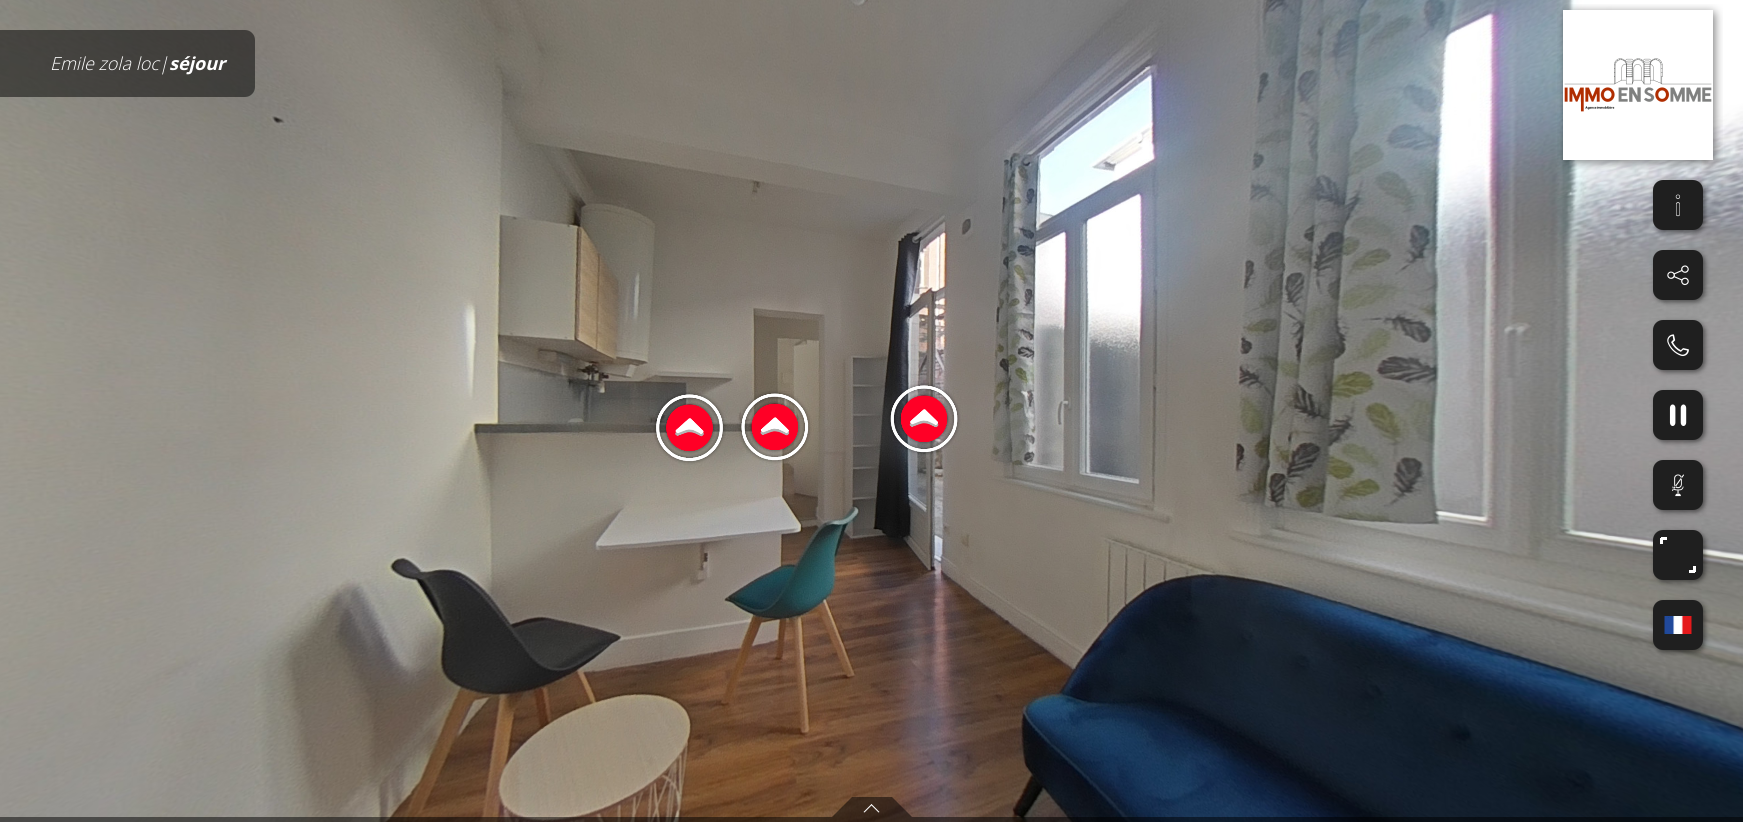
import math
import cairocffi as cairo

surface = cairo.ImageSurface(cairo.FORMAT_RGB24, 1743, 822)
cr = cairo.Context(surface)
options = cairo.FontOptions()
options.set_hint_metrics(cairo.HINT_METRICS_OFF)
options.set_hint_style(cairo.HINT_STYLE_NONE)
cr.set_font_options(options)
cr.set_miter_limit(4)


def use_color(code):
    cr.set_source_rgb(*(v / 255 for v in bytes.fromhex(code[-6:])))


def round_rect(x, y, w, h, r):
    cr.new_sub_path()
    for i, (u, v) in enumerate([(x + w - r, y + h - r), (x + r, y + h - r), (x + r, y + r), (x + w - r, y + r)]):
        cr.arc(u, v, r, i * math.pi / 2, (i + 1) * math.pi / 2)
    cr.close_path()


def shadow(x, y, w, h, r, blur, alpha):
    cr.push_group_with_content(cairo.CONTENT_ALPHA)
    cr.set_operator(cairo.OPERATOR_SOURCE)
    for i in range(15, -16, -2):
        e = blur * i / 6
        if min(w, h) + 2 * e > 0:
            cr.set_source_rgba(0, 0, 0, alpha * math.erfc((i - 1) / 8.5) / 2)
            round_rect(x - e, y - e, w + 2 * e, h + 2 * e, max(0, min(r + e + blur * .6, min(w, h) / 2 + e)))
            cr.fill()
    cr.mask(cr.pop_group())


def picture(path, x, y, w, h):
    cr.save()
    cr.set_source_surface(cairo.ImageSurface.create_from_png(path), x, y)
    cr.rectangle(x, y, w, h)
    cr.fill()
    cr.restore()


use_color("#ffffff")
cr.paint()
picture("img1.png", 0, 0, 1743, 822)
cr.set_source_rgba(0, 0, 0, 0.5)
cr.new_path()
cr.move_to(0, 30)
cr.line_to(245, 30)
cr.curve_to(250.5, 30, 255, 34.5, 255, 40)
cr.line_to(255, 87)
cr.curve_to(255, 92.5, 250.5, 97, 245, 97)
cr.line_to(0, 97)
cr.close_path()
cr.fill()
cr.select_font_face("Open Sans Light", cairo.FONT_SLANT_ITALIC)
cr.set_font_size(18)
use_color("#ffffff")
cr.move_to(50, 70)
cr.show_text("Emile zola loc|")
cr.select_font_face("Open Sans", cairo.FONT_SLANT_ITALIC, cairo.FONT_WEIGHT_BOLD)
cr.move_to(169, 70)
cr.show_text("séjour")
picture("img2.png", 1557, 4, 166, 166)
use_color("#000000")
shadow(1655, 182, 50, 50, 10, 2.5, 0.5)
use_color("#1f1f1f")
round_rect(1653, 180, 50, 50, 10)
cr.fill()
picture("img3.png", 1675, 194, 6, 23)
use_color("#000000")
shadow(1655, 252, 50, 50, 10, 2.5, 0.5)
use_color("#1f1f1f")
round_rect(1653, 250, 50, 50, 10)
cr.fill()
picture("img4.png", 1667, 265, 22, 21)
use_color("#000000")
shadow(1655, 322, 50, 50, 10, 2.5, 0.5)
use_color("#1f1f1f")
round_rect(1653, 320, 50, 50, 10)
cr.fill()
picture("img5.png", 1667, 334, 22, 23)
use_color("#000000")
shadow(1655, 392, 50, 50, 10, 2.5, 0.5)
use_color("#1f1f1f")
round_rect(1653, 390, 50, 50, 10)
cr.fill()
picture("img6.png", 1669, 404, 18, 22)
use_color("#000000")
shadow(1655, 462, 50, 50, 10, 2.5, 0.5)
use_color("#1f1f1f")
round_rect(1653, 460, 50, 50, 10)
cr.fill()
picture("img7.png", 1672, 474, 12, 23)
use_color("#000000")
shadow(1655, 532, 50, 50, 10, 2.5, 0.5)
use_color("#1f1f1f")
round_rect(1653, 530, 50, 50, 10)
cr.fill()
use_color("#ffffff")
cr.rectangle(1661, 537, 6, 3)
cr.fill()
cr.rectangle(1660, 538, 3, 6)
cr.fill()
cr.rectangle(1689, 570, 6, 3)
cr.fill()
cr.rectangle(1693, 566, 3, 6)
cr.fill()
use_color("#000000")
shadow(1655, 602, 50, 50, 10, 2.5, 0.5)
use_color("#1f1f1f")
round_rect(1653, 600, 50, 50, 10)
cr.fill()
picture("img8.png", 1664, 616, 28, 18)
cr.set_source_rgba(0, 0, 0, 0.5)
cr.rectangle(0, 817, 1743, 5)
cr.fill()
cr.new_path()
cr.move_to(912, 817)
cr.line_to(832, 817)
cr.line_to(852, 797)
cr.line_to(892, 797)
cr.close_path()
cr.fill()
use_color("#ffffff")
cr.new_path()
cr.move_to(863.5, 812)
cr.line_to(871.5, 804)
cr.line_to(872, 805)
cr.line_to(864.5, 812.5)
cr.close_path()
cr.fill()
cr.new_path()
cr.move_to(871, 805)
cr.line_to(871.5, 804)
cr.line_to(879.5, 812)
cr.line_to(878.5, 812.5)
cr.close_path()
cr.fill()
surface.write_to_png("result.png")
